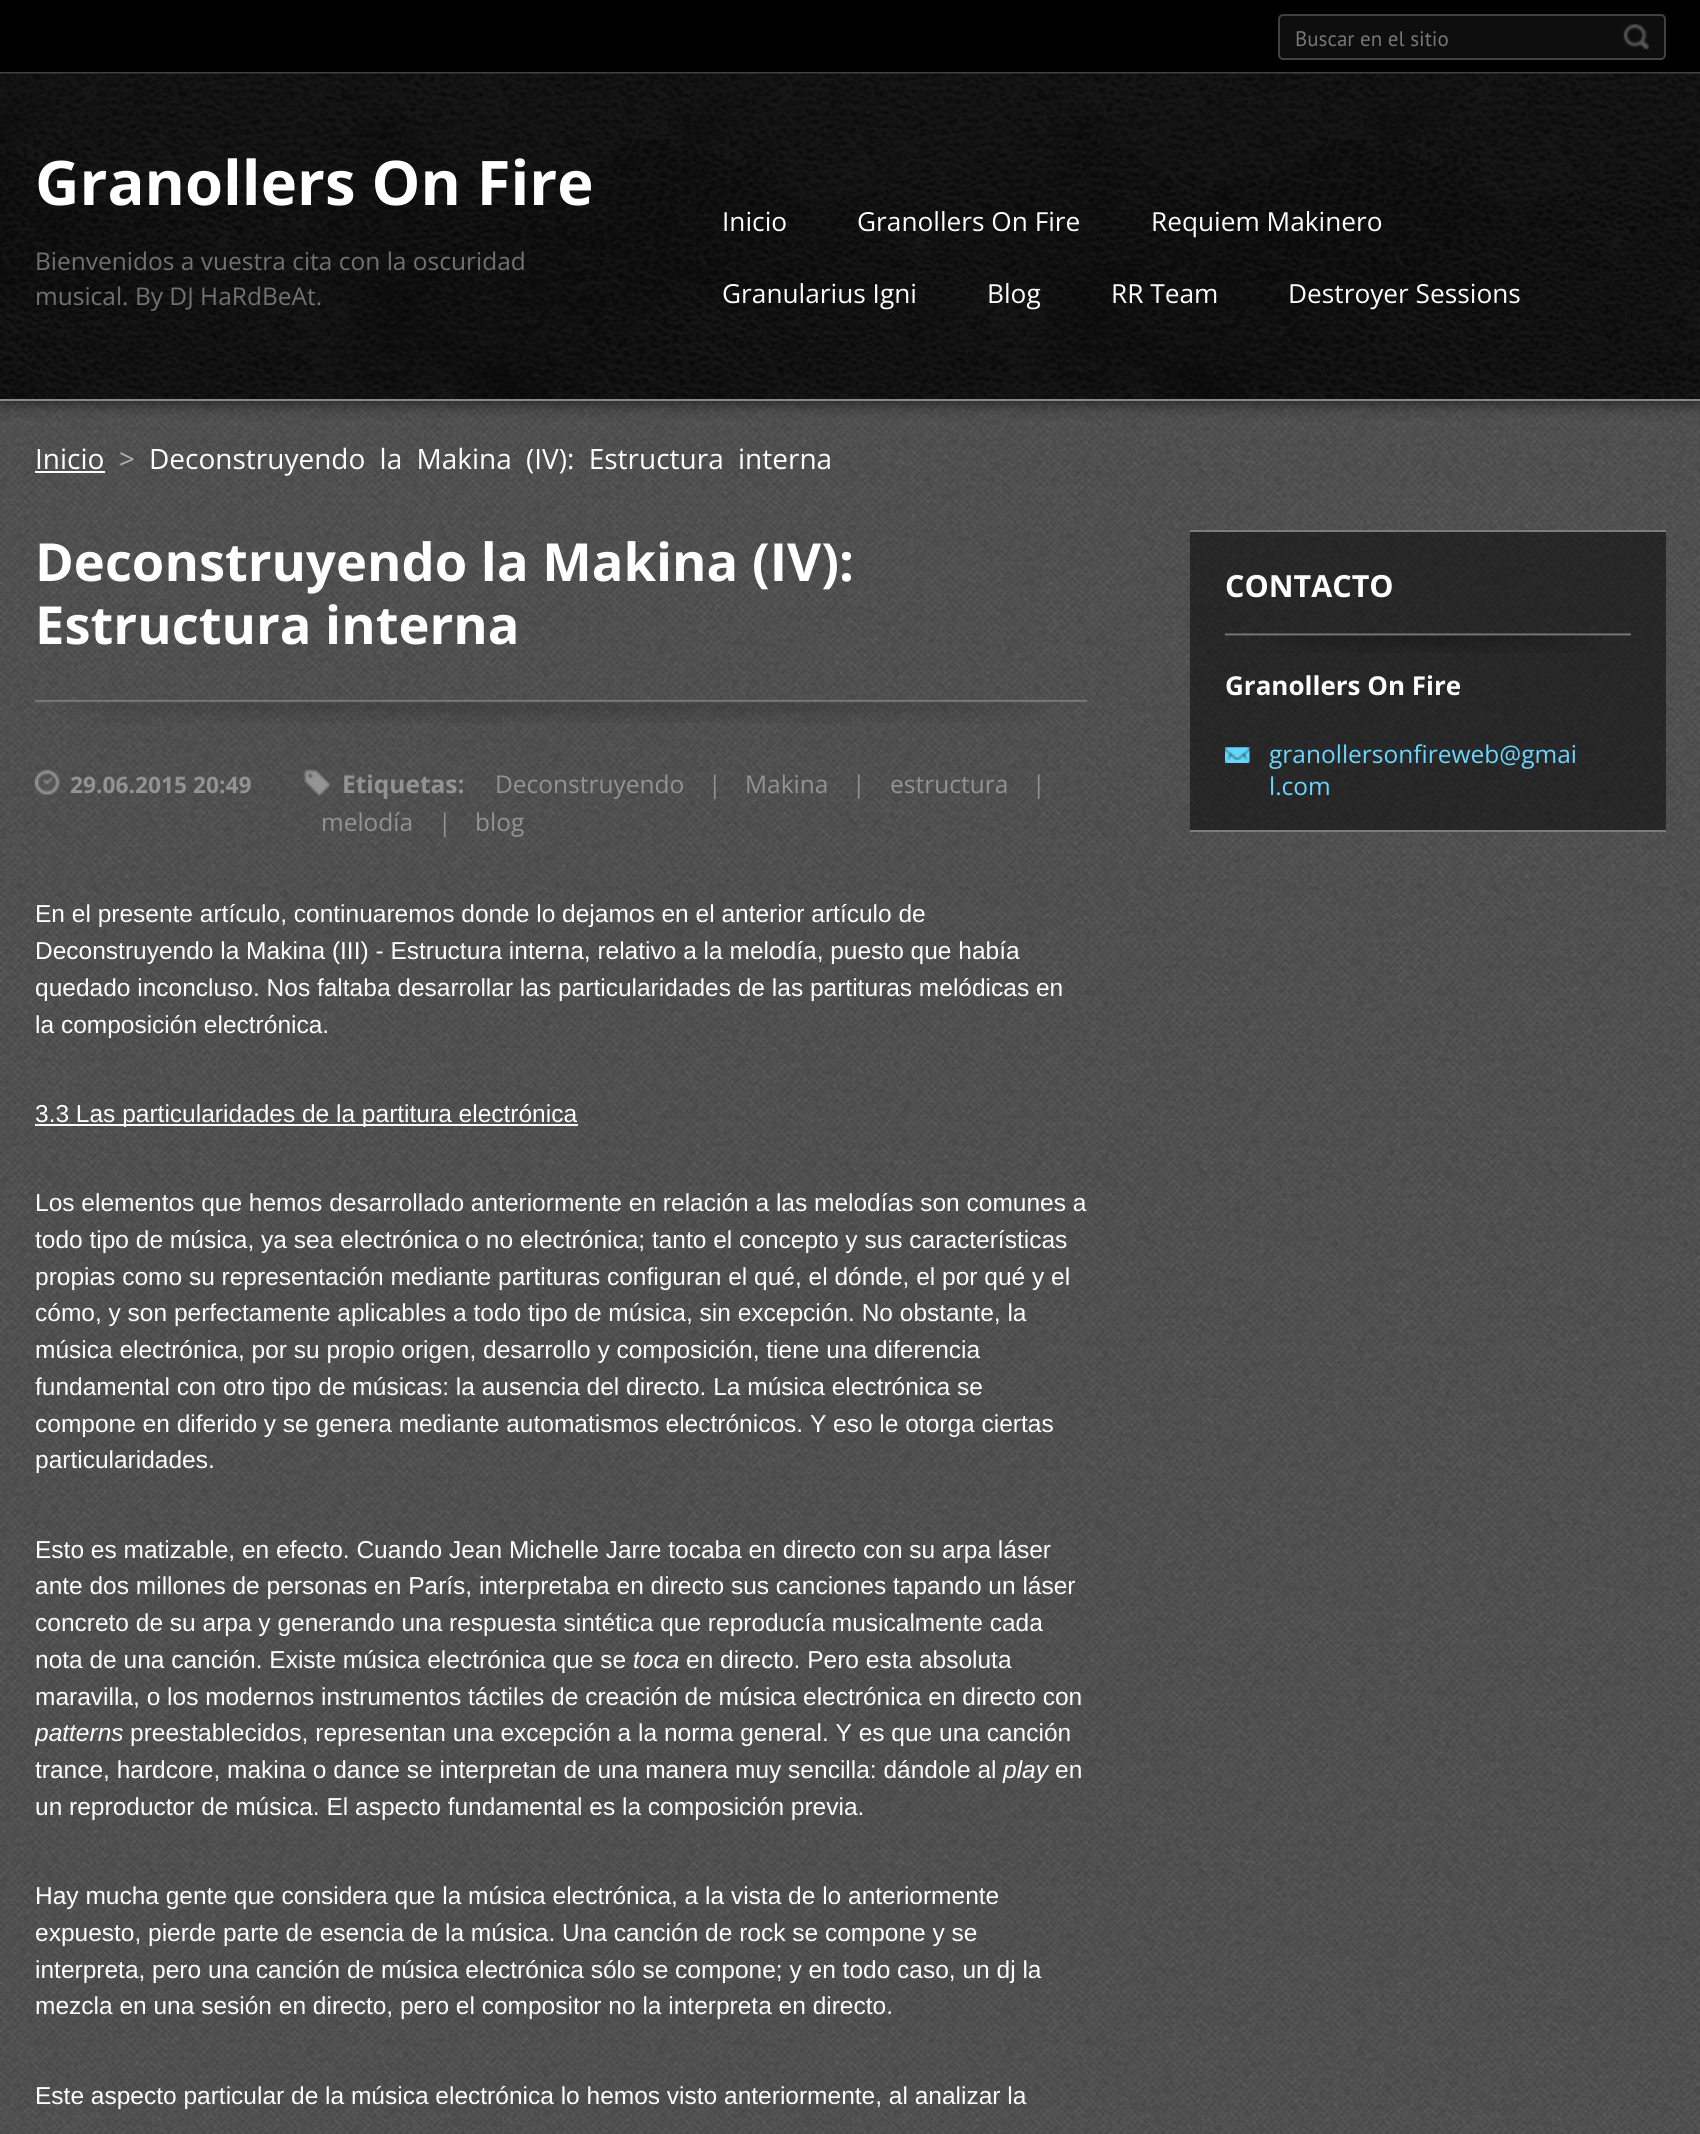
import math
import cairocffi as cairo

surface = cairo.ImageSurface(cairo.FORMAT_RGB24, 1700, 2134)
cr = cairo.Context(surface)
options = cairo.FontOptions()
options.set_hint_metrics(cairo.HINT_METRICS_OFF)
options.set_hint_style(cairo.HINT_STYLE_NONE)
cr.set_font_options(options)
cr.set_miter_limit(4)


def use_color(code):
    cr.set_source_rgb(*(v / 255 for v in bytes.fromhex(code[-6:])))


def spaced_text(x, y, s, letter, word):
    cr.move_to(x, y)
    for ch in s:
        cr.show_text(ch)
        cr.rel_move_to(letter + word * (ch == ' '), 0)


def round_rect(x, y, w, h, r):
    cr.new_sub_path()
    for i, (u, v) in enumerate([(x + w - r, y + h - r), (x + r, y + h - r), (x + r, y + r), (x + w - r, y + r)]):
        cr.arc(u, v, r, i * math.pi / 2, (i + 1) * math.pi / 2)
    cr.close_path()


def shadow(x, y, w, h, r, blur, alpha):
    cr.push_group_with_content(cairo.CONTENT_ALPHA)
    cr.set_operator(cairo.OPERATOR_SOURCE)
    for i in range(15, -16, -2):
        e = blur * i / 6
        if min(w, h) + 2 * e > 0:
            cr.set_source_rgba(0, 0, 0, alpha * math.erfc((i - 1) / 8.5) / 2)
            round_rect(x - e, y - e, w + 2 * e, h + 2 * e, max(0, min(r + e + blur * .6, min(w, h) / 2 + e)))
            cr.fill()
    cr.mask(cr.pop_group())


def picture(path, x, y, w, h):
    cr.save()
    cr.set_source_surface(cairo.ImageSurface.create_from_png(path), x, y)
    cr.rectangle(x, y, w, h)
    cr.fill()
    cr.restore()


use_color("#ffffff")
cr.paint()
picture("img1.png", 0, 401, 1700, 1733)
use_color("#000000")
cr.rectangle(0, 0, 1700, 72)
cr.fill()
use_color("#5e5e5e")
cr.rectangle(0, 72, 1700, 2)
cr.fill()
use_color("#000000")
shadow(0, 74, 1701, 327, 0, 9, 0.7)
use_color("#0e0e0e")
round_rect(1279, 15, 386, 44, 4)
cr.fill_preserve()
use_color("#414141")
cr.stroke()
cr.select_font_face("PT Sans")
cr.set_font_size(21)
use_color("#777777")
cr.move_to(1295, 46)
cr.show_text("Buscar en el sitio")
picture("img2.png", 1623, 24, 26, 26)
picture("img3.png", 0, 73, 1700, 326)
use_color("#8a8a8a")
cr.rectangle(0, 399, 1700, 2)
cr.fill()
cr.select_font_face("Open Sans", cairo.FONT_SLANT_NORMAL, cairo.FONT_WEIGHT_BOLD)
cr.set_font_size(61.5)
use_color("#ffffff")
cr.move_to(35, 205)
cr.show_text("Granollers On Fire")
cr.select_font_face("Open Sans")
cr.set_font_size(24.5)
use_color("#717171")
cr.move_to(35, 270)
cr.show_text("Bienvenidos a vuestra cita con la oscuridad")
cr.move_to(35, 305)
cr.show_text("musical. By DJ HaRdBeAt.")
cr.set_font_size(26.25)
use_color("#ffffff")
cr.move_to(722, 231)
cr.show_text("Inicio")
cr.move_to(857, 231)
cr.show_text("Granollers On Fire")
cr.move_to(1151, 231)
cr.show_text("Requiem Makinero")
cr.move_to(722, 303)
cr.show_text("Granularius Igni")
cr.move_to(987, 303)
cr.show_text("Blog")
cr.move_to(1111, 303)
cr.show_text("RR Team")
cr.move_to(1288, 303)
cr.show_text("Destroyer Sessions")
cr.set_font_size(28)
cr.move_to(35, 469)
cr.show_text("Inicio")
cr.rectangle(35, 471, 70, 2)
cr.fill()
use_color("#b3b3b3")
cr.move_to(119, 469)
cr.show_text(">")
use_color("#ffffff")
spaced_text(149, 469, "Deconstruyendo la Makina (IV): Estructura interna", 0, 7)
picture("img4.png", 35, 700, 1053, 23)
cr.select_font_face("Open Sans", cairo.FONT_SLANT_NORMAL, cairo.FONT_WEIGHT_BOLD)
cr.set_font_size(52.5)
cr.move_to(35, 581)
cr.show_text("Deconstruyendo la Makina (IV):")
cr.move_to(35, 644)
cr.show_text("Estructura interna")
picture("img5.png", 35, 770, 25, 25)
cr.set_font_size(22.75)
use_color("#939393")
cr.move_to(70, 793)
cr.show_text("29.06.2015 20:49")
cr.select_font_face("Open Sans")
cr.set_font_size(24.5)
cr.move_to(495, 793)
cr.show_text("Deconstruyendo")
cr.move_to(708, 793)
cr.show_text("|")
cr.move_to(745, 793)
cr.show_text("Makina")
cr.move_to(852, 793)
cr.show_text("|")
cr.move_to(890, 793)
cr.show_text("estructura")
cr.move_to(1032, 793)
cr.show_text("|")
cr.move_to(321, 831)
cr.show_text("melodía")
cr.move_to(438, 831)
cr.show_text("|")
cr.move_to(475, 831)
cr.show_text("blog")
picture("img6.png", 304, 770, 27, 26)
cr.select_font_face("Open Sans", cairo.FONT_SLANT_NORMAL, cairo.FONT_WEIGHT_BOLD)
cr.move_to(342, 793)
cr.show_text("Etiquetas:")
cr.select_font_face("Liberation Sans")
use_color("#ffffff")
cr.move_to(35, 922)
cr.show_text("En el presente artículo, continuaremos donde lo dejamos en el anterior artículo de")
cr.move_to(35, 959)
cr.show_text("Deconstruyendo la Makina (III) - Estructura interna, relativo a la melodía, puesto que había")
cr.move_to(35, 996)
cr.show_text("quedado inconcluso. Nos faltaba desarrollar las particularidades de las partituras melódicas en")
cr.move_to(35, 1033)
cr.show_text("la composición electrónica.")
cr.rectangle(35, 1124, 543, 2)
cr.fill()
cr.move_to(35, 1122)
cr.show_text("3.3 Las particularidades de la partitura electrónica")
cr.move_to(35, 1211)
cr.show_text("Los elementos que hemos desarrollado anteriormente en relación a las melodías son comunes a")
cr.move_to(35, 1248)
cr.show_text("todo tipo de música, ya sea electrónica o no electrónica; tanto el concepto y sus características")
cr.move_to(35, 1285)
cr.show_text("propias como su representación mediante partituras configuran el qué, el dónde, el por qué y el")
cr.move_to(35, 1321)
cr.show_text("cómo, y son perfectamente aplicables a todo tipo de música, sin excepción. No obstante, la")
cr.move_to(35, 1358)
cr.show_text("música electrónica, por su propio origen, desarrollo y composición, tiene una diferencia")
cr.move_to(35, 1395)
cr.show_text("fundamental con otro tipo de músicas: la ausencia del directo. La música electrónica se")
cr.move_to(35, 1432)
cr.show_text("compone en diferido y se genera mediante automatismos electrónicos. Y eso le otorga ciertas")
cr.move_to(35, 1468)
cr.show_text("particularidades.")
cr.move_to(35, 1558)
cr.show_text("Esto es matizable, en efecto. Cuando Jean Michelle Jarre tocaba en directo con su arpa láser")
cr.move_to(35, 1594)
cr.show_text("ante dos millones de personas en París, interpretaba en directo sus canciones tapando un láser")
cr.move_to(35, 1631)
cr.show_text("concreto de su arpa y generando una respuesta sintética que reproducía musicalmente cada")
cr.move_to(35, 1668)
cr.show_text("nota de una canción. Existe música electrónica que se")
cr.select_font_face("Liberation Sans", cairo.FONT_SLANT_ITALIC)
cr.move_to(633, 1668)
cr.show_text("toca")
cr.select_font_face("Liberation Sans")
cr.move_to(686, 1668)
cr.show_text("en directo. Pero esta absoluta")
cr.move_to(35, 1705)
cr.show_text("maravilla, o los modernos instrumentos táctiles de creación de música electrónica en directo con")
cr.save()
cr.rectangle(35, 530, 1054, 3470)
cr.clip()
cr.select_font_face("Liberation Sans", cairo.FONT_SLANT_ITALIC)
cr.move_to(35, 1741)
cr.show_text("patterns")
cr.restore()
cr.move_to(130, 1741)
cr.show_text("preestablecidos, representan una excepción a la norma general. Y es que una canción")
cr.move_to(35, 1778)
cr.show_text("trance, hardcore, makina o dance se interpretan de una manera muy sencilla: dándole al")
cr.select_font_face("Liberation Sans", cairo.FONT_SLANT_ITALIC)
cr.move_to(1003, 1778)
cr.show_text("play")
cr.select_font_face("Liberation Sans")
cr.move_to(1055, 1778)
cr.show_text("en")
cr.move_to(35, 1815)
cr.show_text("un reproductor de música. El aspecto fundamental es la composición previa.")
cr.move_to(35, 1904)
cr.show_text("Hay mucha gente que considera que la música electrónica, a la vista de lo anteriormente")
cr.move_to(35, 1941)
cr.show_text("expuesto, pierde parte de esencia de la música. Una canción de rock se compone y se")
cr.move_to(35, 1978)
cr.show_text("interpreta, pero una canción de música electrónica sólo se compone; y en todo caso, un dj la")
cr.move_to(35, 2014)
cr.show_text("mezcla en una sesión en directo, pero el compositor no la interpreta en directo.")
cr.move_to(35, 2104)
cr.show_text("Este aspecto particular de la música electrónica lo hemos visto anteriormente, al analizar la")
cr.set_source_rgba(0, 0, 0, 0.5)
cr.rectangle(1190, 532, 476, 298)
cr.fill()
use_color("#7c7c7c")
cr.rectangle(1190, 530, 476, 2)
cr.fill()
cr.rectangle(1190, 830, 476, 2)
cr.fill()
picture("img7.png", 1225, 633, 406, 20)
cr.select_font_face("Open Sans", cairo.FONT_SLANT_NORMAL, cairo.FONT_WEIGHT_BOLD)
cr.set_font_size(30.5)
use_color("#ffffff")
cr.move_to(1225, 597)
cr.show_text("CONTACTO")
cr.set_font_size(26)
cr.move_to(1225, 695)
cr.show_text("Granollers On Fire")
picture("img8.png", 1225, 747, 25, 16)
cr.select_font_face("Open Sans")
cr.set_font_size(24.5)
use_color("#6bd6ff")
cr.move_to(1269, 763)
cr.show_text("granollersonfireweb@gmai")
cr.move_to(1269, 795)
cr.show_text("l.com")
surface.write_to_png("result.png")
